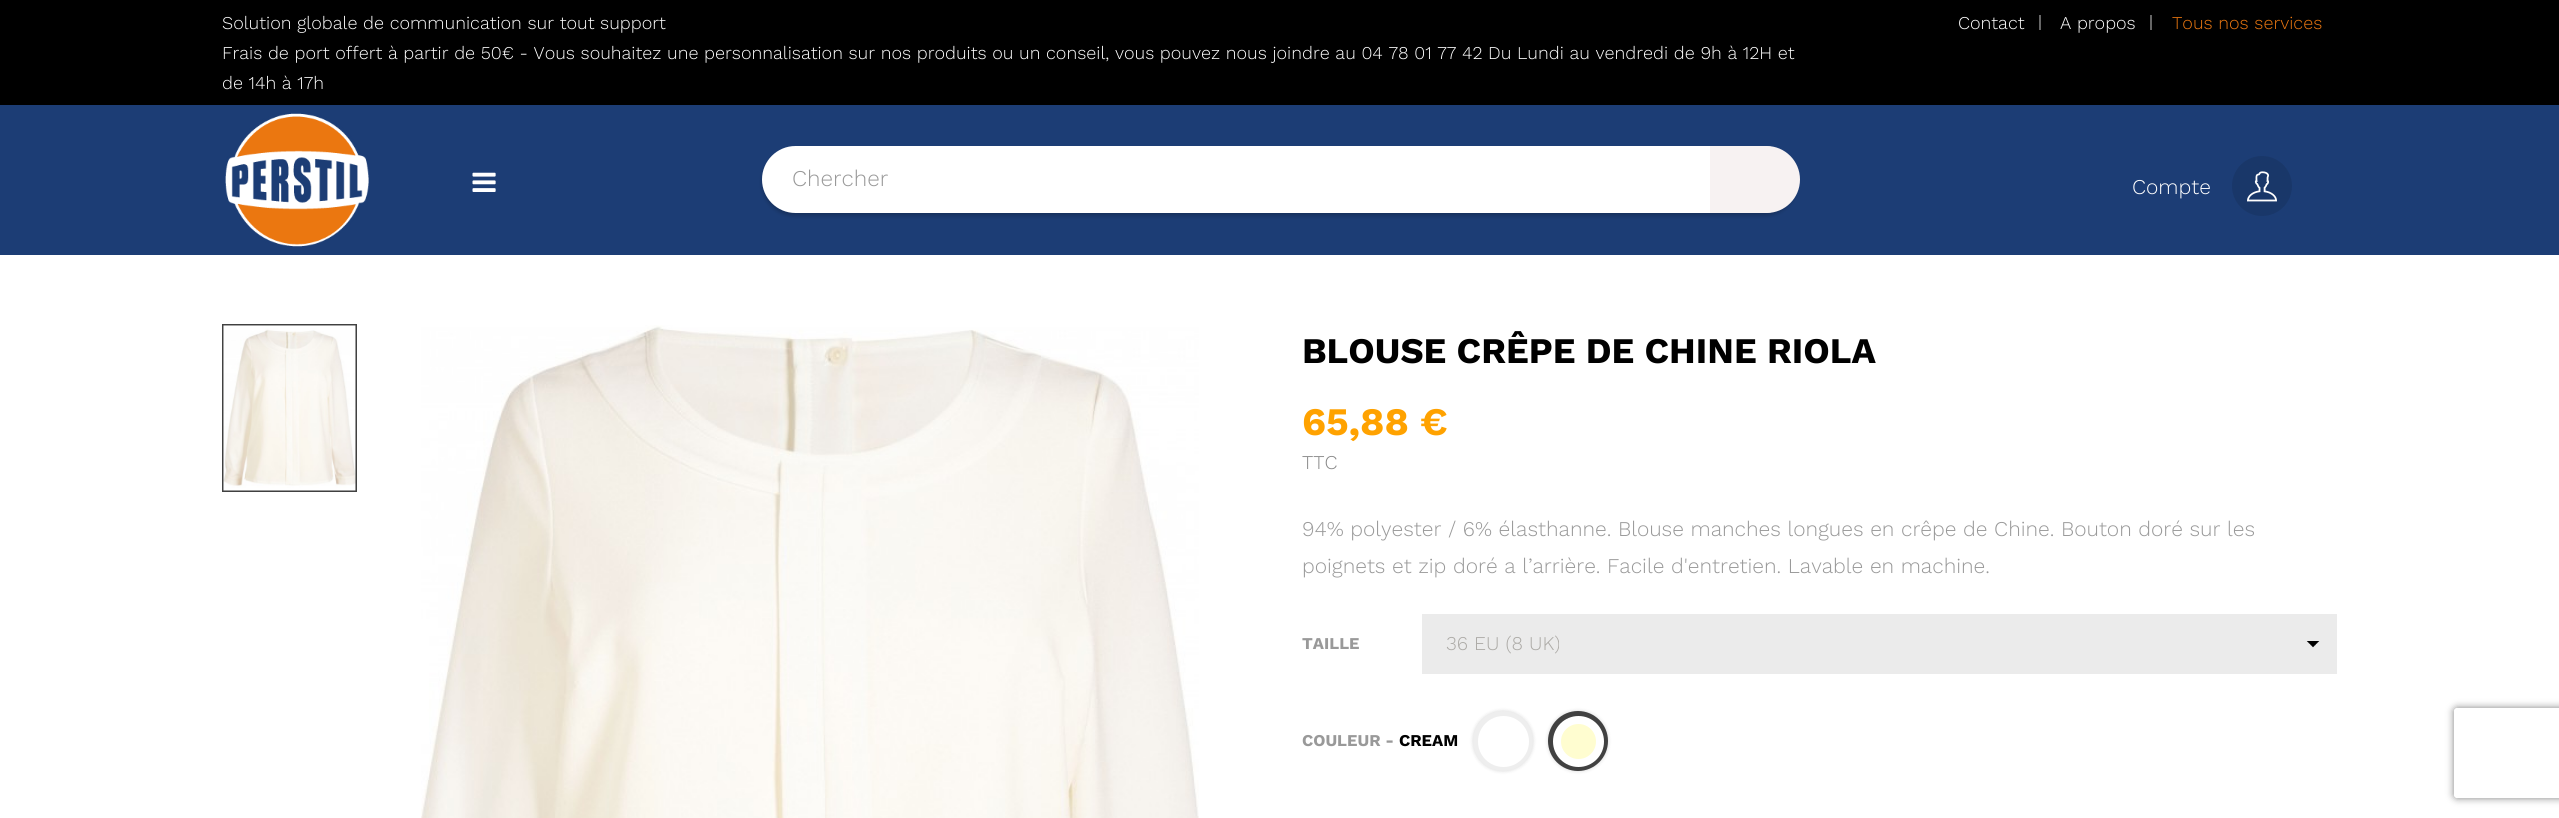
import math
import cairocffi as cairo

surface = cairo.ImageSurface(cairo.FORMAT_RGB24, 2559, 818)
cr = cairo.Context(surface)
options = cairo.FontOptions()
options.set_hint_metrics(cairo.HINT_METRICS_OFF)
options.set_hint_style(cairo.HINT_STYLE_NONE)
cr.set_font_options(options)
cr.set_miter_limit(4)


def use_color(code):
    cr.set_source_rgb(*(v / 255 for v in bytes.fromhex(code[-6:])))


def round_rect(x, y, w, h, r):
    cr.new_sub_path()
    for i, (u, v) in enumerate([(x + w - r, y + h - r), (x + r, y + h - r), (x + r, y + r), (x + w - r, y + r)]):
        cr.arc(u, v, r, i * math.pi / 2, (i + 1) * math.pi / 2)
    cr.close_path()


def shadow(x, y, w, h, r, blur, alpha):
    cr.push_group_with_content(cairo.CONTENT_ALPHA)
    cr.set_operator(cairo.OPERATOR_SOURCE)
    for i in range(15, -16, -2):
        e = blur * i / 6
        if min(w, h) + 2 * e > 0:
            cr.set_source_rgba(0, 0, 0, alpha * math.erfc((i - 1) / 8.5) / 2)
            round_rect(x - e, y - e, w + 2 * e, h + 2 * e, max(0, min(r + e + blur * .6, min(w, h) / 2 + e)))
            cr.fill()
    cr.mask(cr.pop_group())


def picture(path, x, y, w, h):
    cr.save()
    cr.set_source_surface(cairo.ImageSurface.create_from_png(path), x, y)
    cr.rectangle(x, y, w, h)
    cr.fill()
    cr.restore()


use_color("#ffffff")
cr.paint()
use_color("#000000")
cr.rectangle(0, 0, 2559, 105)
cr.fill()
cr.select_font_face("Work Sans Light")
cr.set_font_size(18)
use_color("#ffffff")
cr.move_to(222, 29)
cr.show_text("Solution globale de communication sur tout support")
cr.move_to(222, 59)
cr.show_text("Frais de port offert à partir de 50€ - Vous souhaitez une personnalisation sur nos produits ou un conseil, vous pouvez nous joindre au 04 78 01 77 42 Du Lundi au vendredi de 9h à 12H et")
cr.move_to(222, 89)
cr.show_text("de 14h à 17h")
cr.move_to(1958, 29)
cr.show_text("Contact")
use_color("#666666")
cr.rectangle(2039, 15, 2, 15)
cr.fill()
use_color("#ffffff")
cr.move_to(2060, 29)
cr.show_text("A propos")
use_color("#666666")
cr.rectangle(2150, 15, 2, 15)
cr.fill()
use_color("#eb7710")
cr.move_to(2172, 29)
cr.show_text("Tous nos services")
use_color("#1c3d75")
cr.rectangle(0, 105, 2559, 150)
cr.fill()
picture("img1.png", 225, 113, 144, 134)
picture("img2.png", 472, 172, 24, 20)
use_color("#000000")
shadow(762, 149, 1035, 67, 33.5, 2, 0.2)
use_color("#ffffff")
round_rect(762, 146, 1035, 67, 33.5)
cr.fill()
cr.set_font_size(22.5)
use_color("#999999")
cr.move_to(792, 186)
cr.show_text("Chercher")
use_color("#f7f2f2")
cr.new_path()
cr.move_to(1710, 146)
cr.line_to(1766.5, 146)
cr.curve_to(1785, 146, 1800, 161, 1800, 179.5)
cr.curve_to(1800, 198, 1785, 213, 1766.5, 213)
cr.line_to(1710, 213)
cr.close_path()
cr.fill()
cr.set_font_size(21)
use_color("#ffffff")
cr.move_to(2132, 194)
cr.show_text("Compte")
use_color("#193769")
cr.new_path()
cr.arc(2262, 186, 30, 0, 2 * math.pi)
cr.fill()
picture("img3.png", 2247, 171, 30, 31)
cr.rectangle(223, 325, 133, 166)
use_color("#414141")
cr.stroke()
picture("img4.png", 223, 325, 133, 166)
picture("img5.png", 421, 325, 778, 493)
cr.select_font_face("Work Sans", cairo.FONT_SLANT_NORMAL, cairo.FONT_WEIGHT_BOLD)
cr.set_font_size(36)
use_color("#000000")
cr.move_to(1302, 363)
cr.show_text("BLOUSE CRÊPE DE CHINE RIOLA")
cr.set_font_size(39)
use_color("#ffa200")
cr.move_to(1302, 435)
cr.show_text("65,88 €")
cr.select_font_face("Work Sans Light")
cr.set_font_size(19.5)
use_color("#878787")
cr.move_to(1302, 469)
cr.show_text("TTC")
cr.set_font_size(21)
use_color("#999999")
cr.move_to(1302, 536)
cr.show_text("94% polyester / 6% élasthanne. Blouse manches longues en crêpe de Chine. Bouton doré sur les")
cr.move_to(1302, 573)
cr.show_text("poignets et zip doré a l’arrière. Facile d'entretien. Lavable en machine.")
cr.select_font_face("Work Sans", cairo.FONT_SLANT_NORMAL, cairo.FONT_WEIGHT_BOLD)
cr.set_font_size(16.5)
cr.move_to(1302, 649)
cr.show_text("TAILLE")
use_color("#ebebeb")
cr.rectangle(1422, 614, 915, 60)
cr.fill()
picture("img6.png", 2306, 641, 14, 7)
cr.select_font_face("Work Sans Light")
cr.set_font_size(19.5)
use_color("#acaaa6")
cr.move_to(1446, 650)
cr.show_text("36 EU (8 UK)")
cr.select_font_face("Work Sans", cairo.FONT_SLANT_NORMAL, cairo.FONT_WEIGHT_BOLD)
cr.set_font_size(16.5)
use_color("#999999")
cr.move_to(1302, 746)
cr.show_text("COULEUR -")
use_color("#000000")
cr.move_to(1399, 746)
cr.show_text("CREAM")
use_color("#000000")
shadow(1473, 711, 60, 60, 30, 2, 0.15)
use_color("#ffffff")
cr.arc(1503, 741, 27, 0, 2 * math.pi)
cr.fill_preserve()
use_color("#eeeeee")
cr.set_line_width(6)
cr.stroke()
cr.arc(1503.5, 741.5, 21.5, 0, 2 * math.pi)
use_color("#ffffff")
cr.set_line_width(8)
cr.stroke()
use_color("#000000")
shadow(1548, 711, 60, 60, 30, 2, 0.15)
use_color("#fffdd0")
cr.arc(1578, 741, 27, 0, 2 * math.pi)
cr.fill_preserve()
use_color("#414141")
cr.set_line_width(6)
cr.stroke()
cr.arc(1578.5, 741.5, 21.5, 0, 2 * math.pi)
use_color("#ffffff")
cr.set_line_width(8)
cr.stroke()
cr.save()
cr.set_fill_rule(cairo.FILL_RULE_EVEN_ODD)
cr.new_path()
cr.move_to(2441, 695)
cr.line_to(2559, 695)
cr.line_to(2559, 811)
cr.line_to(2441, 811)
cr.close_path()
cr.move_to(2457, 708)
cr.line_to(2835, 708)
cr.curve_to(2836.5, 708, 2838, 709.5, 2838, 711)
cr.line_to(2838, 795)
cr.curve_to(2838, 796.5, 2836.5, 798, 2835, 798)
cr.line_to(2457, 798)
cr.curve_to(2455.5, 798, 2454, 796.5, 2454, 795)
cr.line_to(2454, 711)
cr.curve_to(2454, 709.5, 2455.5, 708, 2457, 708)
cr.close_path()
cr.clip()
use_color("#808080")
shadow(2454, 708, 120, 90, 3, 4, 1)
cr.restore()
surface.write_to_png("result.png")
